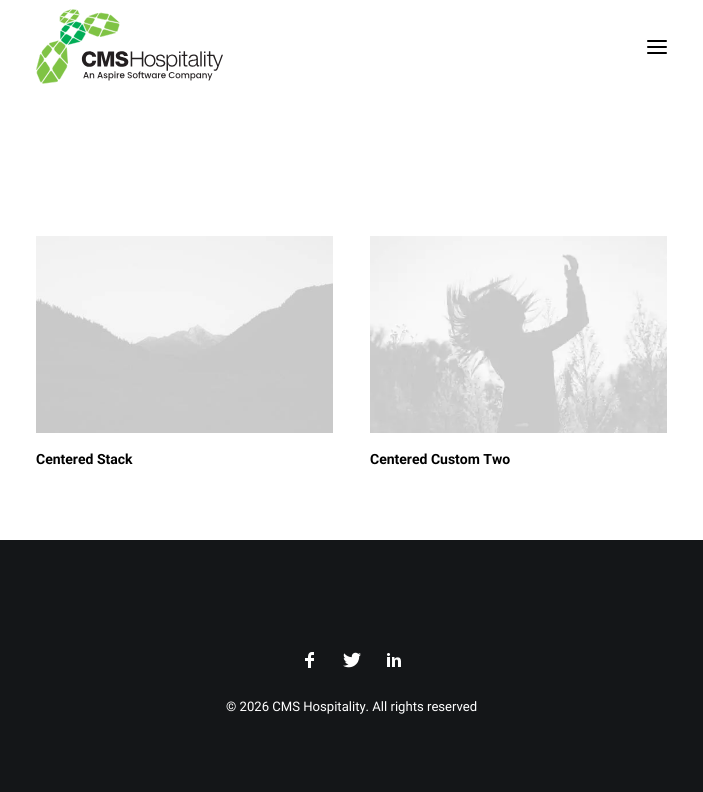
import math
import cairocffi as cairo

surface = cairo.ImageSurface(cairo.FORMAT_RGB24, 703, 792)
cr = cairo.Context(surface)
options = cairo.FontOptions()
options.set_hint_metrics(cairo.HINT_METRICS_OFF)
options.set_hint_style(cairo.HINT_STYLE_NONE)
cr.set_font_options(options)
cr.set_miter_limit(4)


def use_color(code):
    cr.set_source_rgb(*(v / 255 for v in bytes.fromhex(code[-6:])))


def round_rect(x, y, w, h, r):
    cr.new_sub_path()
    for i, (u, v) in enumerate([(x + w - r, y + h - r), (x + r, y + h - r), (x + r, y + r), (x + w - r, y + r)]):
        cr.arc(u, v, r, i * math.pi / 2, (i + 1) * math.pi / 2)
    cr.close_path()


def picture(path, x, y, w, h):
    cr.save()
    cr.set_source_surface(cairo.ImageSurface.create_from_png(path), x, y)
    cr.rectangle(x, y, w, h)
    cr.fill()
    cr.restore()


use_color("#ffffff")
cr.paint()
picture("img1.png", 36, 9, 187, 75)
use_color("#000000")
round_rect(647, 46, 20, 2, 1)
cr.fill()
round_rect(647, 40, 20, 2, 1)
cr.fill()
round_rect(647, 52, 20, 2, 1)
cr.fill()
picture("img2.png", 36, 236, 297, 197)
cr.select_font_face("Roboto", cairo.FONT_SLANT_NORMAL, cairo.FONT_WEIGHT_BOLD)
cr.set_font_size(14)
cr.move_to(36, 464)
cr.show_text("Centered Stack")
picture("img3.png", 370, 236, 297, 197)
cr.move_to(370, 464)
cr.show_text("Centered Custom Two")
use_color("#141618")
cr.rectangle(0, 540, 703, 252)
cr.fill()
picture("img4.png", 305, 652, 9, 16)
picture("img5.png", 343, 652, 18, 16)
picture("img6.png", 387, 653, 14, 14)
cr.select_font_face("Roboto")
cr.set_font_size(13.1)
use_color("#ffffff")
cr.move_to(226, 711)
cr.show_text("© 2026 CMS Hospitality. All rights reserved")
surface.write_to_png("result.png")
